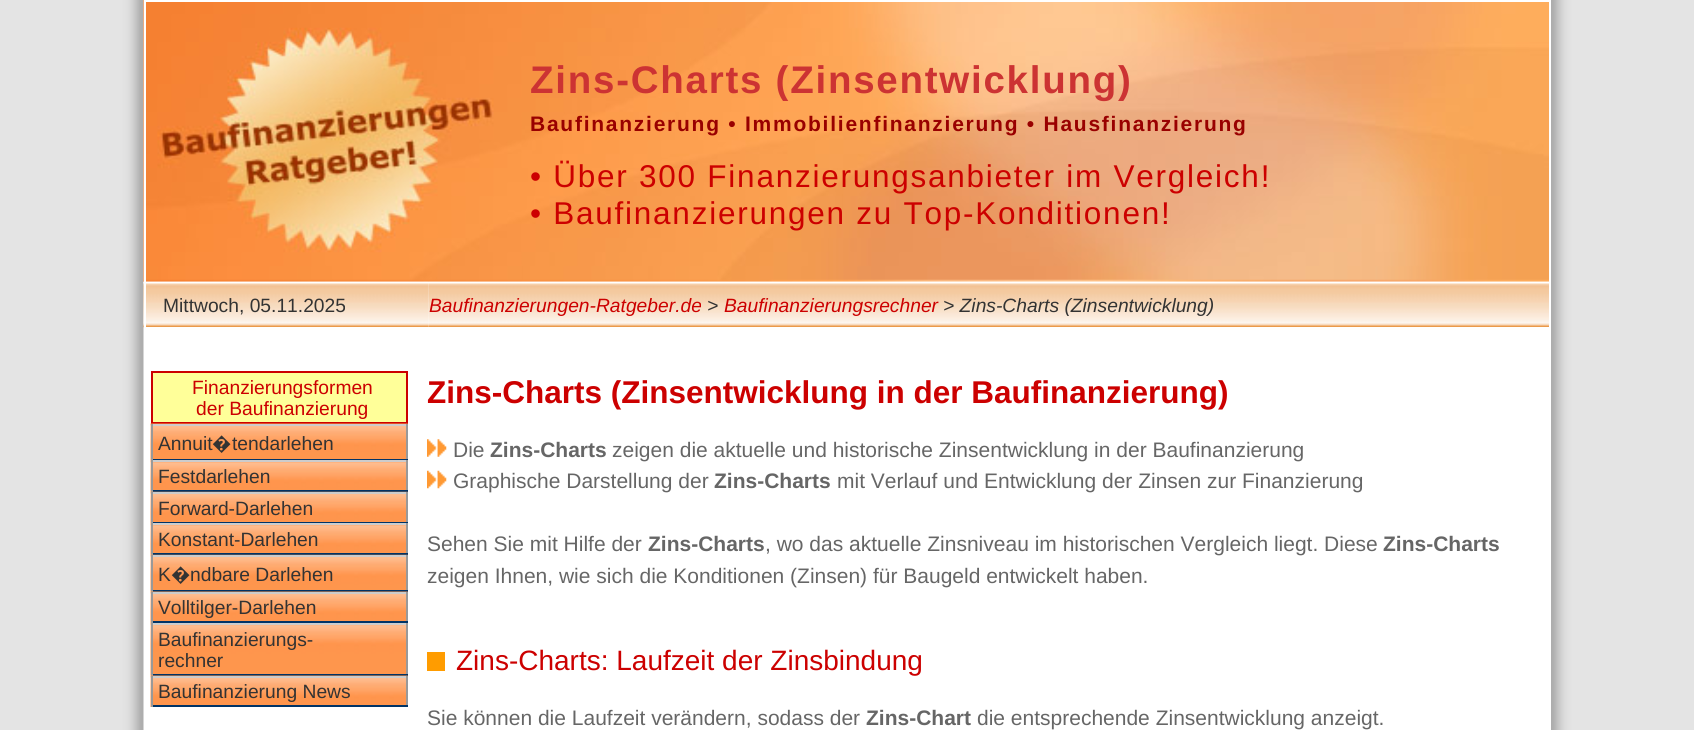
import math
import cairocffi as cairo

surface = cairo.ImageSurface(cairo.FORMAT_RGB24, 1694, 730)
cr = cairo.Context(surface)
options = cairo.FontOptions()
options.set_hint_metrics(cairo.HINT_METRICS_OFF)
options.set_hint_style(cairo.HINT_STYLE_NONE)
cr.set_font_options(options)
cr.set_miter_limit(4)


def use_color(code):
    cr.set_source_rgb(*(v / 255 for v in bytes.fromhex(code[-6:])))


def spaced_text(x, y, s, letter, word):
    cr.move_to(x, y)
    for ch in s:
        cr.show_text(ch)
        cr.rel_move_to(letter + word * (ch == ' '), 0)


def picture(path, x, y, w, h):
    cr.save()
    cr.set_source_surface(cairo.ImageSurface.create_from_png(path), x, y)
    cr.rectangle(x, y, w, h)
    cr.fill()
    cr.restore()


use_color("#ffffff")
cr.paint()
picture("img1.png", 0, 0, 1694, 730)
picture("img2.png", 143, 0, 1406, 282)
use_color("#ffffff")
cr.rectangle(144, 0, 1407, 2)
cr.fill()
cr.rectangle(144, 0, 2, 282)
cr.fill()
cr.rectangle(1550, 0, 1, 282)
cr.fill()
cr.select_font_face("Liberation Sans", cairo.FONT_SLANT_NORMAL, cairo.FONT_WEIGHT_BOLD)
cr.set_font_size(38.5)
use_color("#cc3333")
spaced_text(530, 93, "Zins-Charts (Zinsentwicklung)", 1.75, 0)
cr.set_font_size(21)
use_color("#990000")
spaced_text(530, 131, "Baufinanzierung • Immobilienfinanzierung • Hausfinanzierung", 1.75, 0)
cr.select_font_face("Liberation Sans")
cr.set_font_size(31.5)
use_color("#cc0000")
spaced_text(530, 187, "• Über 300 Finanzierungsanbieter im Vergleich!", 1.75, 0)
spaced_text(530, 224, "• Baufinanzierungen zu Top-Konditionen!", 1.75, 0)
picture("img3.png", 143, 281, 286, 47)
use_color("#ffffff")
cr.rectangle(144, 282, 2, 45)
cr.fill()
cr.set_font_size(19.25)
use_color("#333333")
cr.move_to(163, 312)
cr.show_text("Mittwoch, 05.11.2025")
picture("img4.png", 428, 281, 1123, 46)
use_color("#ffffff")
cr.rectangle(1549, 282, 2, 45)
cr.fill()
cr.select_font_face("Liberation Sans", cairo.FONT_SLANT_ITALIC)
use_color("#cc0000")
cr.move_to(429, 312)
cr.show_text("Baufinanzierungen-Ratgeber.de")
use_color("#333333")
cr.move_to(707, 312)
cr.show_text(">")
use_color("#cc0000")
cr.move_to(724, 312)
cr.show_text("Baufinanzierungsrechner")
use_color("#333333")
cr.move_to(943, 312)
cr.show_text("> Zins-Charts (Zinsentwicklung)")
use_color("#ffffff")
cr.rectangle(144, 327, 269, 1)
cr.fill()
use_color("#ffff99")
cr.rectangle(152, 372, 255, 51)
cr.fill_preserve()
use_color("#cc0000")
cr.stroke()
cr.select_font_face("Liberation Sans")
cr.move_to(192, 394)
cr.show_text("Finanzierungsformen")
cr.move_to(196, 415)
cr.show_text("der Baufinanzierung")
picture("img5.png", 150, 423, 258, 38)
use_color("#cccccc")
cr.rectangle(151, 424, 257, 2)
cr.fill()
use_color("#999999")
cr.rectangle(406, 424, 2, 36)
cr.fill()
use_color("#003366")
cr.rectangle(151, 459, 257, 1)
cr.fill()
use_color("#999999")
cr.rectangle(151, 424, 2, 36)
cr.fill()
use_color("#333333")
cr.move_to(158, 450)
cr.show_text("Annuit")
cr.select_font_face("Noto Sans")
cr.move_to(212, 450)
cr.show_text("�")
cr.select_font_face("Liberation Sans")
cr.move_to(232, 450)
cr.show_text("tendarlehen")
picture("img6.png", 150, 460, 256, 32)
use_color("#cccccc")
cr.rectangle(151, 460, 257, 2)
cr.fill()
use_color("#999999")
cr.rectangle(406, 460, 2, 32)
cr.fill()
use_color("#003366")
cr.rectangle(151, 490, 257, 2)
cr.fill()
use_color("#999999")
cr.rectangle(151, 460, 2, 32)
cr.fill()
use_color("#333333")
cr.move_to(158, 483)
cr.show_text("Festdarlehen")
picture("img7.png", 150, 491, 258, 33)
use_color("#cccccc")
cr.rectangle(151, 492, 257, 2)
cr.fill()
use_color("#999999")
cr.rectangle(406, 492, 2, 31)
cr.fill()
use_color("#003366")
cr.rectangle(151, 522, 257, 1)
cr.fill()
use_color("#999999")
cr.rectangle(151, 492, 2, 31)
cr.fill()
use_color("#333333")
cr.move_to(158, 515)
cr.show_text("Forward-Darlehen")
picture("img6.png", 150, 523, 256, 32)
use_color("#cccccc")
cr.rectangle(151, 523, 257, 2)
cr.fill()
use_color("#999999")
cr.rectangle(406, 523, 2, 32)
cr.fill()
use_color("#003366")
cr.rectangle(151, 553, 257, 2)
cr.fill()
use_color("#999999")
cr.rectangle(151, 523, 2, 32)
cr.fill()
use_color("#333333")
cr.move_to(158, 546)
cr.show_text("Konstant-Darlehen")
picture("img8.png", 150, 554, 258, 38)
use_color("#cccccc")
cr.rectangle(151, 555, 257, 2)
cr.fill()
use_color("#999999")
cr.rectangle(406, 555, 2, 37)
cr.fill()
use_color("#003366")
cr.rectangle(151, 590, 257, 2)
cr.fill()
use_color("#999999")
cr.rectangle(151, 555, 2, 37)
cr.fill()
use_color("#333333")
cr.move_to(158, 581)
cr.show_text("K")
cr.select_font_face("Noto Sans")
cr.move_to(171, 581)
cr.show_text("�")
cr.select_font_face("Liberation Sans")
cr.move_to(190, 581)
cr.show_text("ndbare Darlehen")
picture("img9.png", 150, 591, 258, 32)
use_color("#cccccc")
cr.rectangle(151, 592, 257, 2)
cr.fill()
use_color("#999999")
cr.rectangle(406, 592, 2, 31)
cr.fill()
use_color("#003366")
cr.rectangle(151, 621, 257, 2)
cr.fill()
use_color("#999999")
cr.rectangle(151, 592, 2, 31)
cr.fill()
use_color("#333333")
cr.move_to(158, 614)
cr.show_text("Volltilger-Darlehen")
picture("img10.png", 150, 623, 256, 53)
use_color("#cccccc")
cr.rectangle(151, 623, 257, 2)
cr.fill()
use_color("#999999")
cr.rectangle(406, 623, 2, 53)
cr.fill()
use_color("#003366")
cr.rectangle(151, 674, 257, 2)
cr.fill()
use_color("#999999")
cr.rectangle(151, 623, 2, 53)
cr.fill()
use_color("#333333")
cr.move_to(158, 646)
cr.show_text("Baufinanzierungs-")
cr.move_to(158, 667)
cr.show_text("rechner")
picture("img9.png", 150, 675, 258, 32)
use_color("#cccccc")
cr.rectangle(151, 676, 257, 2)
cr.fill()
use_color("#999999")
cr.rectangle(406, 676, 2, 31)
cr.fill()
use_color("#003366")
cr.rectangle(151, 705, 257, 2)
cr.fill()
use_color("#999999")
cr.rectangle(151, 676, 2, 31)
cr.fill()
use_color("#333333")
cr.move_to(158, 698)
cr.show_text("Baufinanzierung News")
use_color("#ffffff")
cr.rectangle(413, 327, 1138, 403)
cr.fill()
cr.select_font_face("Liberation Sans", cairo.FONT_SLANT_NORMAL, cairo.FONT_WEIGHT_BOLD)
cr.set_font_size(31.5)
use_color("#cc0000")
cr.move_to(427, 403)
cr.show_text("Zins-Charts (Zinsentwicklung in der Baufinanzierung)")
picture("img11.png", 427, 439, 20, 18)
cr.select_font_face("Liberation Sans")
cr.set_font_size(21)
use_color("#666666")
cr.move_to(453, 457)
cr.show_text("Die")
cr.select_font_face("Liberation Sans", cairo.FONT_SLANT_NORMAL, cairo.FONT_WEIGHT_BOLD)
cr.move_to(490, 457)
cr.show_text("Zins-Charts")
cr.select_font_face("Liberation Sans")
cr.move_to(612, 457)
cr.show_text("zeigen die aktuelle und historische Zinsentwicklung in der Baufinanzierung")
picture("img12.png", 427, 470, 20, 19)
cr.move_to(453, 488)
cr.show_text("Graphische Darstellung der")
cr.select_font_face("Liberation Sans", cairo.FONT_SLANT_NORMAL, cairo.FONT_WEIGHT_BOLD)
cr.move_to(714, 488)
cr.show_text("Zins-Charts")
cr.select_font_face("Liberation Sans")
cr.move_to(837, 488)
cr.show_text("mit Verlauf und Entwicklung der Zinsen zur Finanzierung")
cr.move_to(427, 551)
cr.show_text("Sehen Sie mit Hilfe der")
cr.select_font_face("Liberation Sans", cairo.FONT_SLANT_NORMAL, cairo.FONT_WEIGHT_BOLD)
cr.move_to(648, 551)
cr.show_text("Zins-Charts")
cr.select_font_face("Liberation Sans")
cr.move_to(765, 551)
cr.show_text(", wo das aktuelle Zinsniveau im historischen Vergleich liegt. Diese")
cr.select_font_face("Liberation Sans", cairo.FONT_SLANT_NORMAL, cairo.FONT_WEIGHT_BOLD)
cr.move_to(1383, 551)
cr.show_text("Zins-Charts")
cr.select_font_face("Liberation Sans")
cr.move_to(427, 583)
cr.show_text("zeigen Ihnen, wie sich die Konditionen (Zinsen) für Baugeld entwickelt haben.")
use_color("#ff9c00")
cr.rectangle(427, 652, 18, 19)
cr.fill()
cr.set_font_size(28)
use_color("#cc0000")
cr.move_to(456, 670)
cr.show_text("Zins-Charts: Laufzeit der Zinsbindung")
cr.set_font_size(21)
use_color("#666666")
cr.move_to(427, 725)
cr.show_text("Sie können die Laufzeit verändern, sodass der")
cr.select_font_face("Liberation Sans", cairo.FONT_SLANT_NORMAL, cairo.FONT_WEIGHT_BOLD)
cr.move_to(866, 725)
cr.show_text("Zins-Chart")
cr.select_font_face("Liberation Sans")
cr.move_to(977, 725)
cr.show_text("die entsprechende Zinsentwicklung anzeigt.")
surface.write_to_png("result.png")
